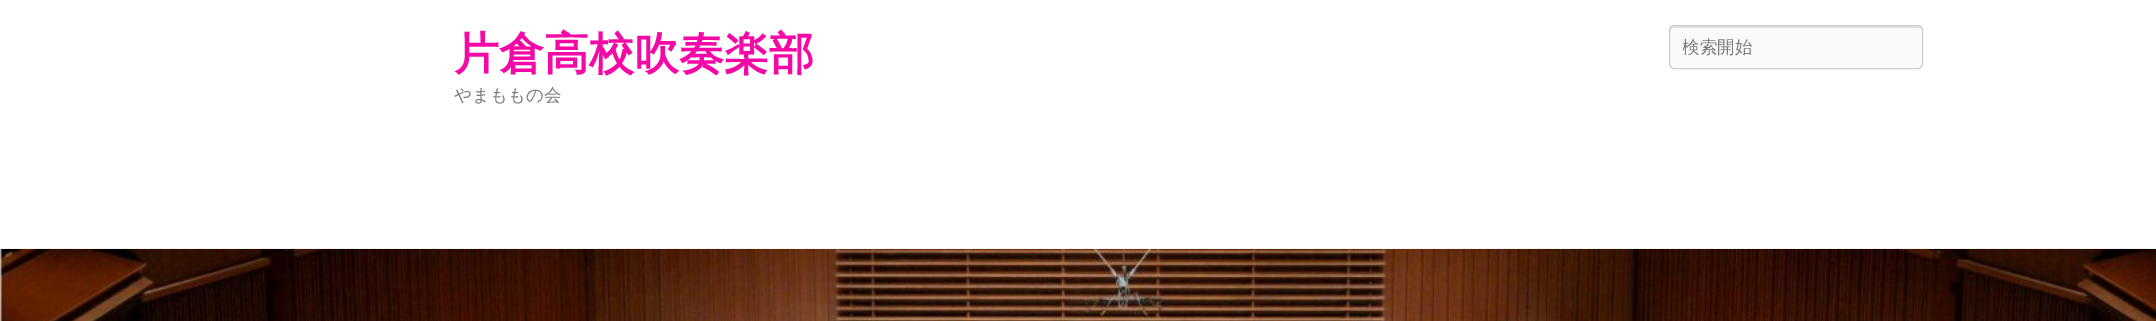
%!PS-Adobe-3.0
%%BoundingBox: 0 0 2156 321
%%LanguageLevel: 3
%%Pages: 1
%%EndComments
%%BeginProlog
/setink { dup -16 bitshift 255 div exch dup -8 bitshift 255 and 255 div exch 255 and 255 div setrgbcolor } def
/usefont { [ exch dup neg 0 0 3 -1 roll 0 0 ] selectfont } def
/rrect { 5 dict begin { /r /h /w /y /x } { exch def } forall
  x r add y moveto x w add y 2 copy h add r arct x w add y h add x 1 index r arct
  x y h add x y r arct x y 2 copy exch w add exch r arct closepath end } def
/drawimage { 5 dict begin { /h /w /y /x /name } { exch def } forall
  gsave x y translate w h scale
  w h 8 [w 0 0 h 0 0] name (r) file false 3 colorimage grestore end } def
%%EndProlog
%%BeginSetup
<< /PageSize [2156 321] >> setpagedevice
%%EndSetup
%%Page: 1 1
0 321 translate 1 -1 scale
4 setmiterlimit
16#FFFFFF setink
0 0 2156 321 rectfill
/WenQuanYiZenHei-Bold 45 usefont
16#F409A6 setink
454 69 moveto (片倉高校吹奏楽部) show
/WenQuanYiZenHei-Medium 17.5 usefont
16#7A7A7A setink
454 101 moveto (やまももの会) show
16#FAFAFA setink
1669 25 254 44 5 rrect fill
16#E1E1E1 setink
1674 28 moveto 1919 28 lineto 1921 29 lineto 1921 31 lineto 1921 30 lineto 1921 28 1919 26 1917 26 curveto 1674 26 lineto 1672 26 1670 28 1670 30 curveto 1670 31 lineto 1670 29 1672 28 1674 28 curveto closepath fill
16#CCCCCC setink
1669.5 25.5 253 43 4.5 rrect stroke
gsave
1683 36 226 23 rectclip
16#7A7A7A setink
1682 53 moveto (検索開始) show
grestore
(img1.raw) 0 248 2156 73 drawimage
showpage
%%EOF
